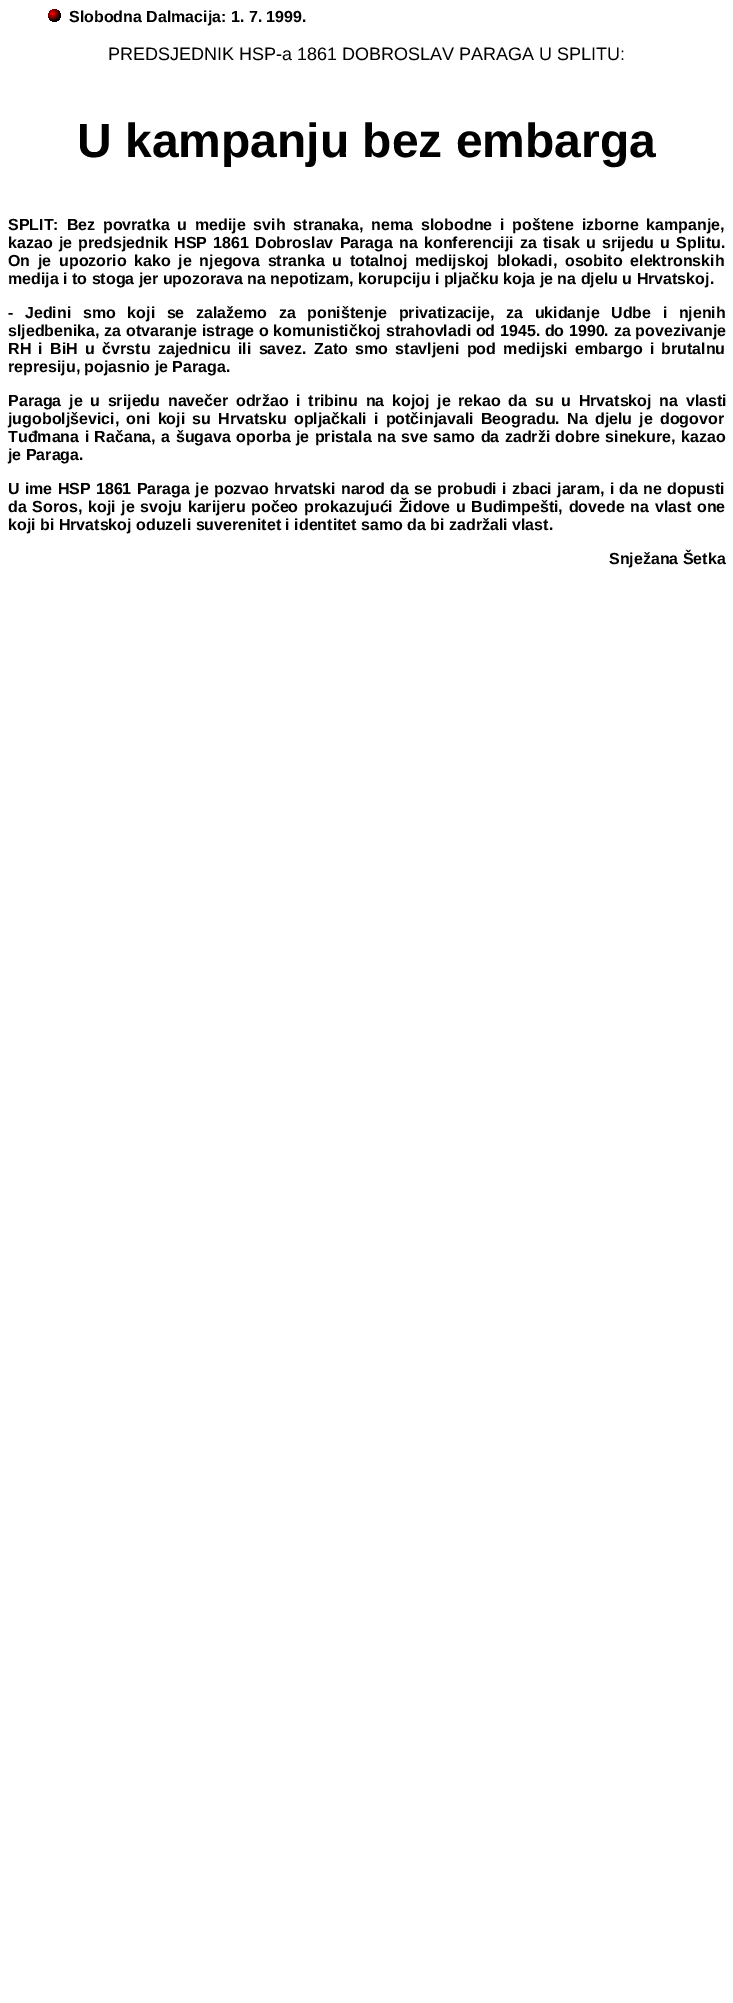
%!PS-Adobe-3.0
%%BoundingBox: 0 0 733 2003
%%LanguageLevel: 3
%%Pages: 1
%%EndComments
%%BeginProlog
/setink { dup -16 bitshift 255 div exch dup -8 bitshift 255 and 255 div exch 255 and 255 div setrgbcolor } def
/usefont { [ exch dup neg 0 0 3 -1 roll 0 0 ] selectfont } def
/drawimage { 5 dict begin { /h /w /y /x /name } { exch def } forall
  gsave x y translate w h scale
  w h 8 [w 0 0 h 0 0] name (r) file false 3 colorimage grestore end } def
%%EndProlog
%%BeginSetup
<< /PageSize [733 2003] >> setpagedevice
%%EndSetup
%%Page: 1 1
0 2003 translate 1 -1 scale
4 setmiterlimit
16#FFFFFF setink
0 0 733 2003 rectfill
(img1.raw) 48 9 13 13 drawimage
/LiberationSans-Bold 16 usefont
16#000000 setink
69 22 moveto (Slobodna Dalmacija: 1. 7. 1999.) show
/LiberationSans-Regular 18 usefont
108 60 moveto (PREDSJEDNIK HSP-a 1861 DOBROSLAV PARAGA U SPLITU:) show
/LiberationSans-Bold 48 usefont
77 157 moveto (U kampanju bez embarga) show
/LiberationSans-Bold 16 usefont
8 230 moveto 3.4 0 32 (SPLIT: Bez povratka u medije svih stranaka, nema slobodne i poštene izborne kampanje,) widthshow
8 248 moveto 1.75 0 32 (kazao je predsjednik HSP 1861 Dobroslav Paraga na konferenciji za tisak u srijedu u Splitu.) widthshow
8 266 moveto 3.25 0 32 (On je upozorio kako je njegova stranka u totalnoj medijskoj blokadi, osobito elektronskih) widthshow
8 284 moveto (medija i to stoga jer upozorava na nepotizam, korupciju i pljačku koja je na djelu u Hrvatskoj.) show
8 318 moveto 7.1 0 32 (- Jedini) widthshow
83 318 moveto 7.1 0 32 (smo koji se zalažemo za poništenje privatizacije, za ukidanje Udbe i njenih) widthshow
8 336 moveto 0.25 0 32 (sljedbenika, za otvaranje istrage o komunističkoj strahovladi od 1945. do 1990. za povezivanje) widthshow
8 354 moveto 2.9 0 32 (RH i BiH u čvrstu zajednicu ili savez. Zato smo stavljeni pod medijski embargo i bru) widthshow
687 354 moveto (talnu) show
8 372 moveto (represiju, pojasnio je Paraga.) show
8 406 moveto 3.25 0 32 (Paraga je u srijedu navečer održao i tribinu na kojoj je rekao da su u Hrvatskoj na vlasti) widthshow
8 424 moveto 2.75 0 32 (jugoboljševici, oni koji su Hrvatsku opljačkali i potčinjavali Beogradu. Na djelu je dogovor) widthshow
8 442 moveto 1 0 32 (Tuđmana i Račana, a šugava oporba je pristala na sve samo da zadrži dobre sinekure, kazao) widthshow
8 460 moveto (je Paraga.) show
8 494 moveto 0.8 0 32 (U ime HSP 1861 Paraga je pozvao hrvatski narod da se probudi i zbaci jaram, i da ne dopusti) widthshow
8 512 moveto 1.25 0 32 (da Soros, koji je svoju karijeru počeo prokazujući Židove u Budimpešti, dovede na vlast one) widthshow
8 530 moveto (koji bi Hrvatskoj oduzeli suverenitet i identitet samo da bi zadržali vlast.) show
609 564 moveto (Snježana Šetka) show
showpage
%%EOF
